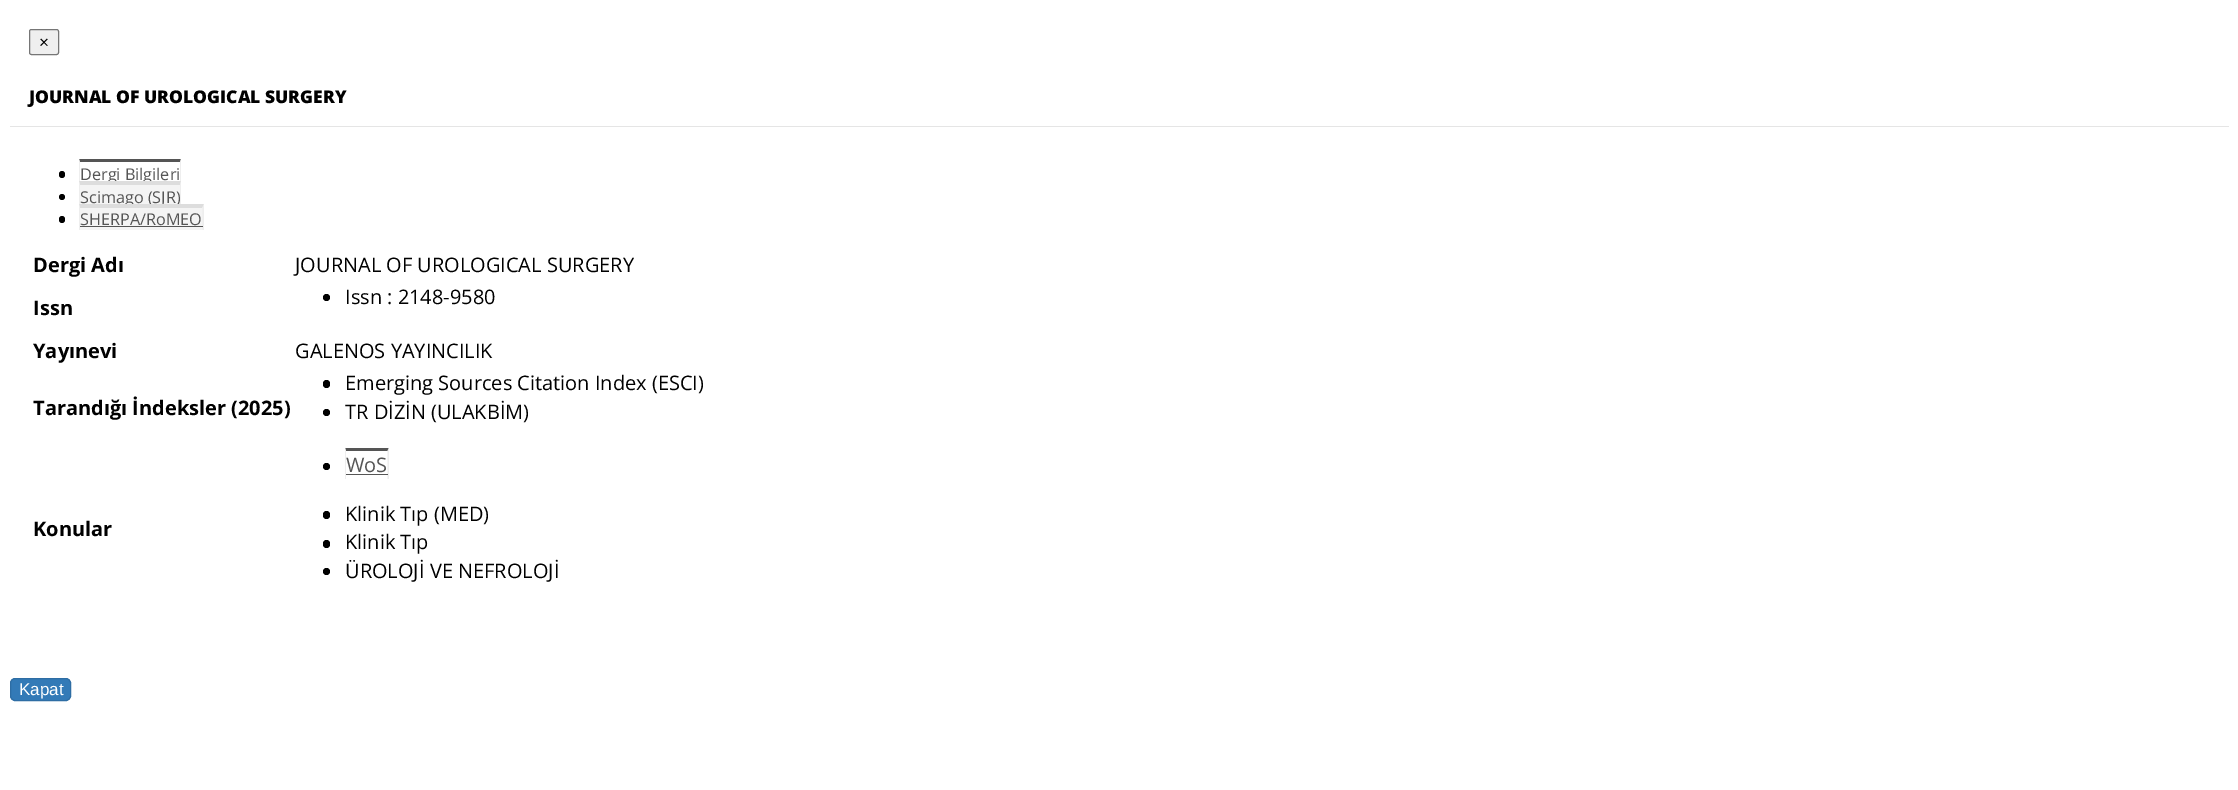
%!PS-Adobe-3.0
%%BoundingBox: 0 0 2238 790
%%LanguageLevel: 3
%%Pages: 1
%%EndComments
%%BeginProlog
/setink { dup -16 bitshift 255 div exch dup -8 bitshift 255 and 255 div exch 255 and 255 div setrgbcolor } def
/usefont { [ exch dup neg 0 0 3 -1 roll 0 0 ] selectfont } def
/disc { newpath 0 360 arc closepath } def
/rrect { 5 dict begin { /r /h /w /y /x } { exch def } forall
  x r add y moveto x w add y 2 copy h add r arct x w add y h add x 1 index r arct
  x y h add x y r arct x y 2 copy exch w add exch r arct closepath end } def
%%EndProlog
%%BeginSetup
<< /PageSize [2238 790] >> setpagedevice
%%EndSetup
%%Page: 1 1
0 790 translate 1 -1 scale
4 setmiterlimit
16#FFFFFF setink
0 0 2238 790 rectfill
16#E5E5E5 setink
10 126 2219 1 rectfill
16#EFEFEF setink
29.5 29.5 29 25 2 rrect gsave fill grestore
16#767676 setink
stroke
/LiberationSans-Regular 17 usefont
16#000000 setink
39 48 moveto (×) show
/OpenSans-ExtraBold 17.5 usefont
29 103 moveto (JOURNAL OF UROLOGICAL SURGERY) show
59 171 6 7 3 rrect fill
/OpenSans-Regular 16.25 usefont
16#555555 setink
80 180 moveto (Dergi Bilgileri) show
79 159 moveto 181 159 lineto 180 162 lineto 80 162 lineto closepath fill
16#EEEEEE setink
181 159 moveto 181 185 lineto 180 185 lineto 180 162.5 lineto closepath fill
79 185 moveto 79 159 lineto 80 162.5 lineto 80 185 lineto closepath fill
16#000000 setink
62 197 3 disc fill
16#F4F4F4 setink
79 181 102 23 rectfill
16#555555 setink
80 203 moveto (Scimago \(SJR\)) show
16#DDDDDD setink
79 181 moveto 181 181 lineto 180 185 lineto 80 185 lineto closepath fill
16#EEEEEE setink
181 181 moveto 181 207.5 lineto 180 207.5 lineto 180 185 lineto closepath fill
79 207.5 moveto 79 181 lineto 80 185 lineto 80 207.5 lineto closepath fill
16#000000 setink
59 216 6 7 3 rrect fill
16#F4F4F4 setink
79 204 125 26 rectfill
16#555555 setink
80 225 moveto (SHERPA/RoMEO) show
16#DDDDDD setink
79 204 moveto 204 204 lineto 202 208 lineto 80 208 lineto closepath fill
16#EEEEEE setink
204 204 moveto 204 230 lineto 202.5 230 lineto 202.5 207.5 lineto closepath fill
79 230 moveto 79 204 lineto 80 207.5 lineto 80 230 lineto closepath fill
16#555555 setink
80 226 123 1 rectfill
/OpenSans-Bold 20 usefont
16#000000 setink
33 272 moveto (Dergi Adı) show
/OpenSans-Regular 20 usefont
295 272 moveto (JOURNAL OF UROLOGICAL SURGERY) show
326.5 297.5 3.5 disc fill
345 304 moveto (Issn : 2148-9580) show
/OpenSans-Bold 20 usefont
33 315 moveto (Issn) show
33 358 moveto (Yayınevi) show
/OpenSans-Regular 20 usefont
295 358 moveto (GALENOS YAYINCILIK) show
/OpenSans-Bold 20 usefont
33 415 moveto (Tarandığı İndeksler \(2025\)) show
323 380 7 8 3.5 rrect fill
/OpenSans-Regular 20 usefont
345 390 moveto (Emerging Sources Citation Index \(ESCI\)) show
326.5 412.5 3.5 disc fill
345 419 moveto (TR DİZİN \(ULAKBİM\)) show
/OpenSans-Bold 20 usefont
33 536 moveto (Konular) show
326.5 466.5 3.5 disc fill
16#555555 setink
345 448 moveto 389 448 lineto 388 451 lineto 346 451 lineto closepath fill
16#EEEEEE setink
389 447.5 moveto 389 479 lineto 387.5 479 lineto 387.5 451 lineto closepath 345 479 moveto 345 447.5 lineto 346 451 lineto 346 479 lineto closepath fill
/OpenSans-Regular 20 usefont
16#555555 setink
346 472 moveto (WoS) show
346 474 42 1 rectfill
16#000000 setink
323 511 7 8 3.5 rrect fill
345 521 moveto (Klinik Tıp \(MED\)) show
323 540 7 8 3.5 rrect fill
345 549 moveto (Klinik Tıp) show
326.5 571.5 3.5 disc fill
345 578 moveto (ÜROLOJİ VE NEFROLOJİ) show
16#337AB7 setink
10.5 678.5 60 22 4.5 rrect gsave fill grestore
16#2E6DA4 setink
stroke
/LiberationSans-Regular 17 usefont
16#FFFFFF setink
19 695 moveto (Kapat) show
showpage
%%EOF
